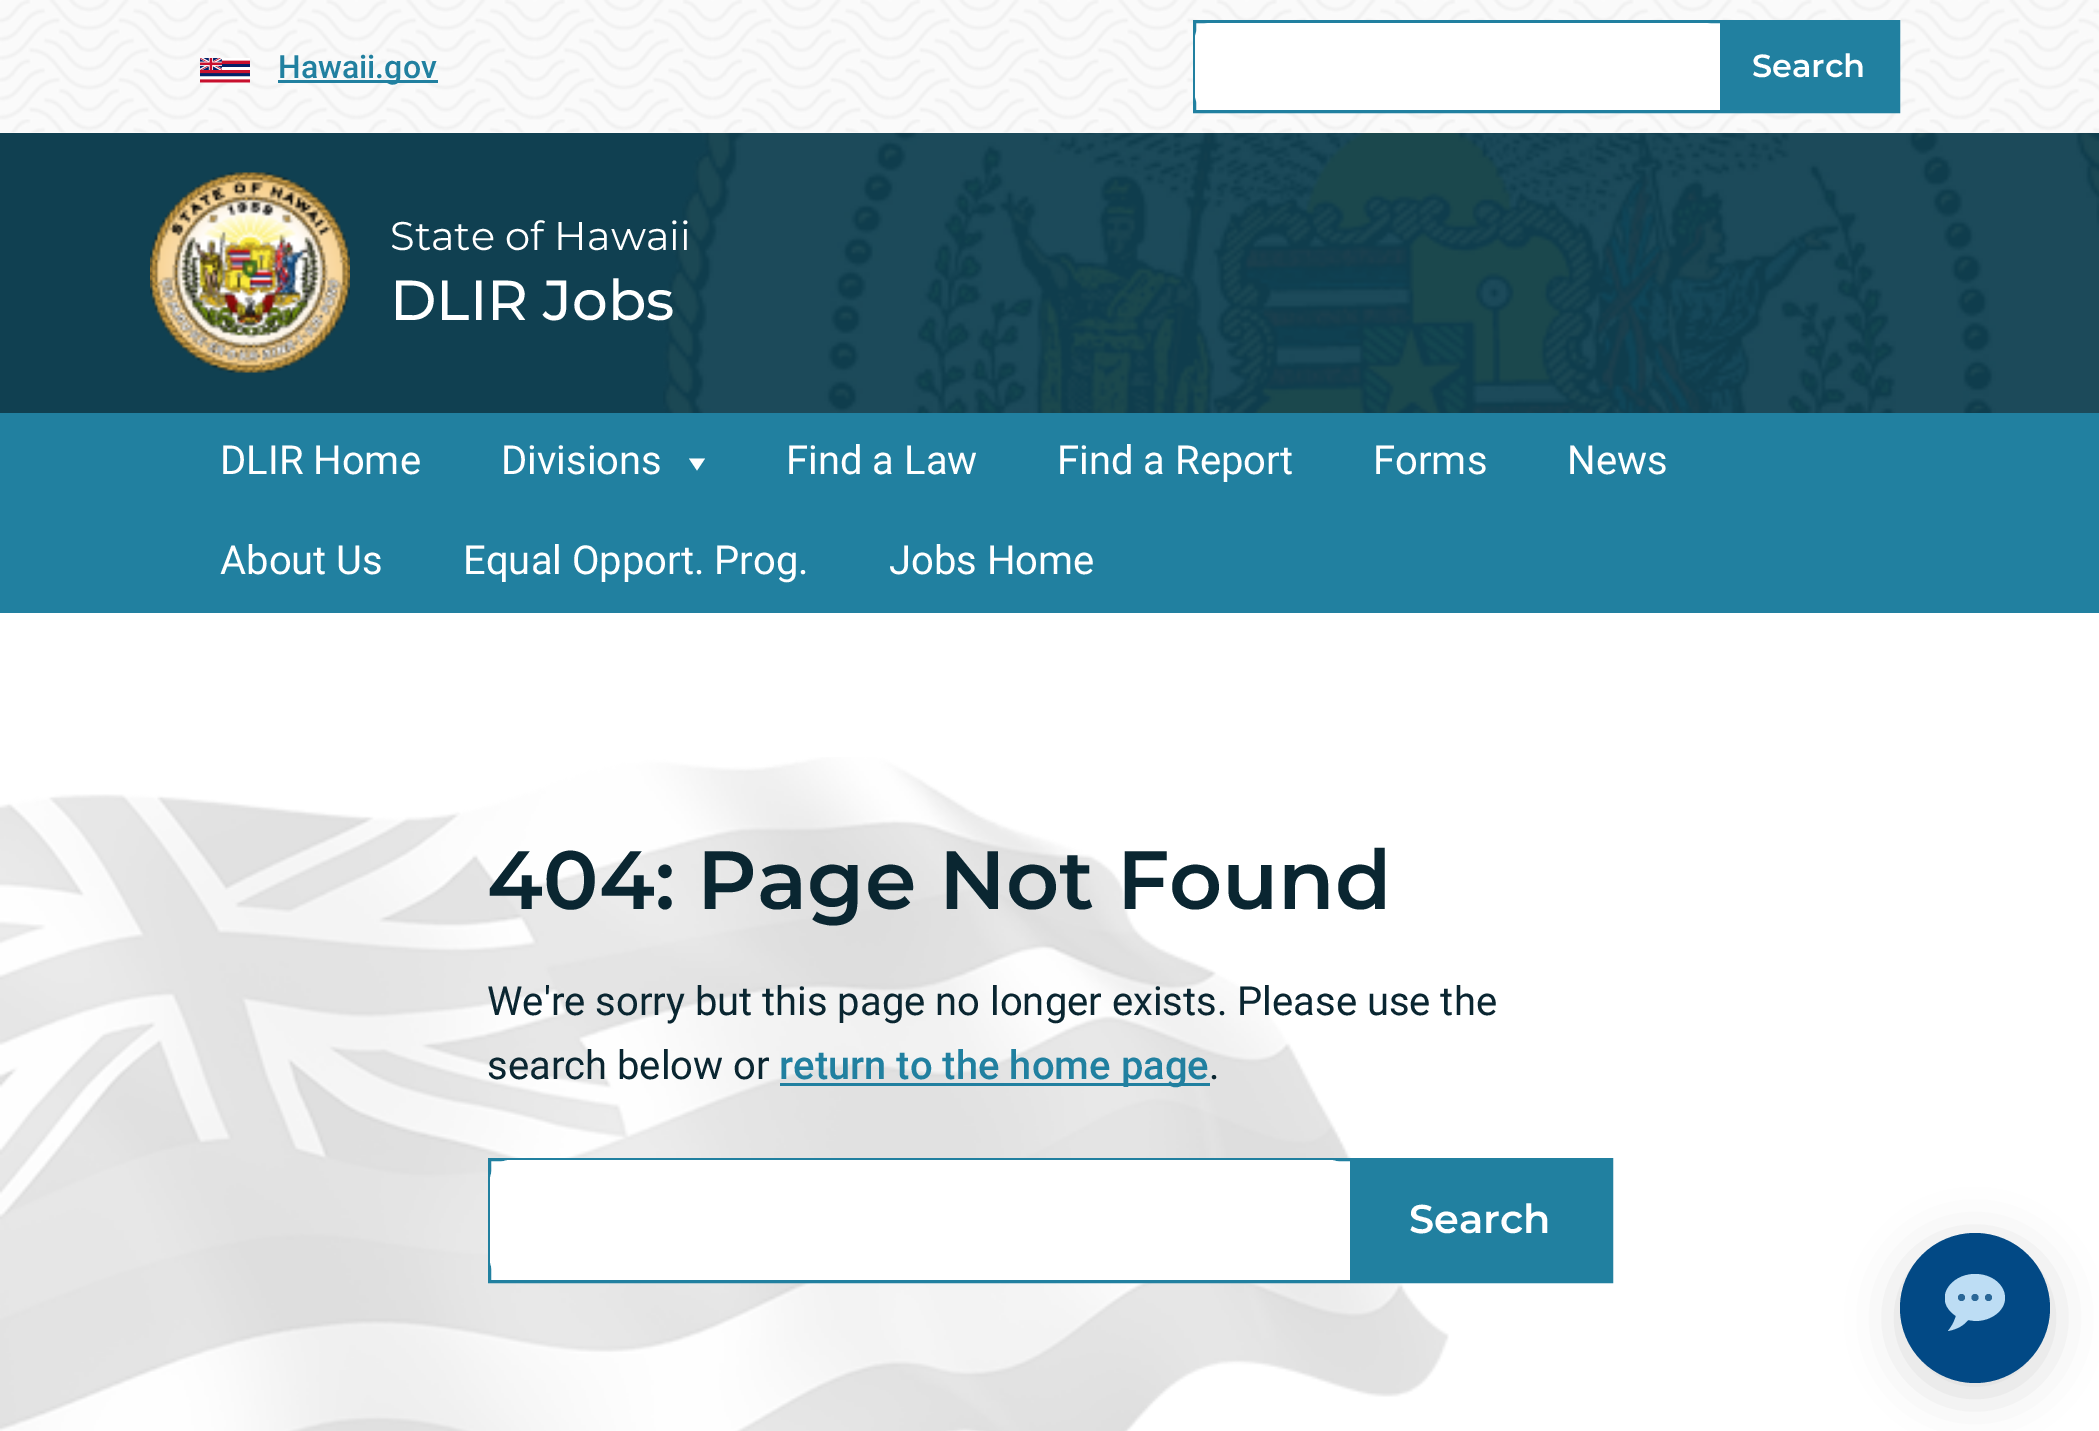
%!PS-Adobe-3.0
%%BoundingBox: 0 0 2099 1431
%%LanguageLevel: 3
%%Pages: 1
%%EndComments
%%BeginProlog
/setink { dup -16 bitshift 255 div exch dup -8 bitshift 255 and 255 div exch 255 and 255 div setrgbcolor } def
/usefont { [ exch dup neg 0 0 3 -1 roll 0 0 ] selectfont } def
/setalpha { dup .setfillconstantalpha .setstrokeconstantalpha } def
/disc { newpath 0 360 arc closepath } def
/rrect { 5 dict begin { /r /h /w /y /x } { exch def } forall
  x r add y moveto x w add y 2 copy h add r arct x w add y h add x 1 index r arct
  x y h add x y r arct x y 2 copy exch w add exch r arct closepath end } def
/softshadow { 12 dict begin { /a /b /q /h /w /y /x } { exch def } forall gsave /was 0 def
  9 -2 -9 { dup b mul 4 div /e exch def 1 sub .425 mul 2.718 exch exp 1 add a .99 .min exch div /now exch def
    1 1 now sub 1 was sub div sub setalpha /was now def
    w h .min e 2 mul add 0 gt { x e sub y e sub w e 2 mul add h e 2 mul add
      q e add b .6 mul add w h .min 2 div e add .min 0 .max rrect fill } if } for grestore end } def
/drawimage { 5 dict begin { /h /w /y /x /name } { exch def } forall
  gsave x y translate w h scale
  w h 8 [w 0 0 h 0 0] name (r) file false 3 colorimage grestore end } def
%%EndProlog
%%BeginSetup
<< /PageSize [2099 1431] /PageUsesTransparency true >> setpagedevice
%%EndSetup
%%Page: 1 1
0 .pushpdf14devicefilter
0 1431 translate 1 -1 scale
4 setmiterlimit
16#FFFFFF setink
0 0 2099 1431 rectfill
(img1.raw) 0 0 2099 133 drawimage
(img2.raw) 200 58 50 25 drawimage
16#2180A0 setink
278 80 160 3 rectfill
/Roboto-Medium 32 usefont
278 78 moveto (Hawaii.gov) show
16#FFFFFF setink
1196 23 524 87 rectfill
16#2180A0 setink
3 setlinewidth
1194.5 21.5 704 90 rectstroke
16#FFFFFF setink
1195 23 525 87 15 rrect fill
16#2180A0 setink
1720 23 177 87 rectfill
/Montserrat-SemiBold 32 usefont
16#FFFFFF setink
1752 77 moveto (Search) show
16#104051 setink
0 133 2099 280 rectfill
(img3.raw) 663 132 1436 281 drawimage
(img4.raw) 150 172 200 201 drawimage
/Montserrat-Regular 40 usefont
16#FFFFFF setink
390 250 moveto (State of Hawaii) show
/Montserrat-Medium 56.25 usefont
390 320 moveto (DLIR Jobs) show
16#2180A0 setink
0 413 2099 200 rectfill
/Roboto-Regular 40 usefont
16#FFFFFF setink
220 474 moveto (DLIR Home) show
501 474 moveto (Divisions) show
705 458.5 moveto 697 470.5 lineto 689 458.5 lineto closepath fill
[
    [(Find a Law) 786 474]
    [(Find a Report) 1057 474]
    [(Forms) 1373 474]
    [(News) 1567 474]
    [(About Us) 220 574]
    [(Equal Opport. Prog.) 463 574]
    [(Jobs Home) 889 574]
] { aload pop moveto show } forall
(img5.raw) 0 757 1449 674 drawimage
/Montserrat-SemiBold 82.5 usefont
16#0A2631 setink
487 909 moveto (404: Page Not Found) show
/Roboto-Regular 40 usefont
487 1015 moveto (We're sorry but this page no longer exists. Please use the) show
487 1079 moveto (search below or) show
16#2180A0 setink
780 1083 430 3 rectfill
/Roboto-Medium 40 usefont
779 1079 moveto (return to the home page) show
/Roboto-Regular 40 usefont
16#0A2631 setink
1209 1079 moveto (.) show
16#FFFFFF setink
491 1161 859 119 rectfill
16#2180A0 setink
489.5 1159.5 1122 122 rectstroke
16#FFFFFF setink
490 1160 860 120 20 rrect fill
16#2180A0 setink
1350 1161 260 119 rectfill
/Montserrat-SemiBold 40 usefont
16#FFFFFF setink
1409 1233 moveto (Search) show
16#000000 setink
1900 1243 150 150 75 25 0.15 softshadow
16#024985 setink
1975 1308 75 disc fill
gsave
1945 1273 60 60 rectclip
16#BDDDF4 setink
1975 1274 moveto 1950 1274 1932 1300 1956 1316 curveto 1955 1319 1953 1325 1948 1331 curveto 1958 1329 1964 1325 1968 1320 curveto 1975 1321 lineto 1992 1321 2005 1310 2005 1298 curveto 2005 1285 1992 1274 1975 1274 curveto closepath fill
grestore
16#2A6797 setink
1961.5 1297.5 3.5 disc fill
1975 1297.5 3.5 disc fill
1988.5 1297.5 3.5 disc fill
.poppdf14devicefilter showpage
%%EOF
